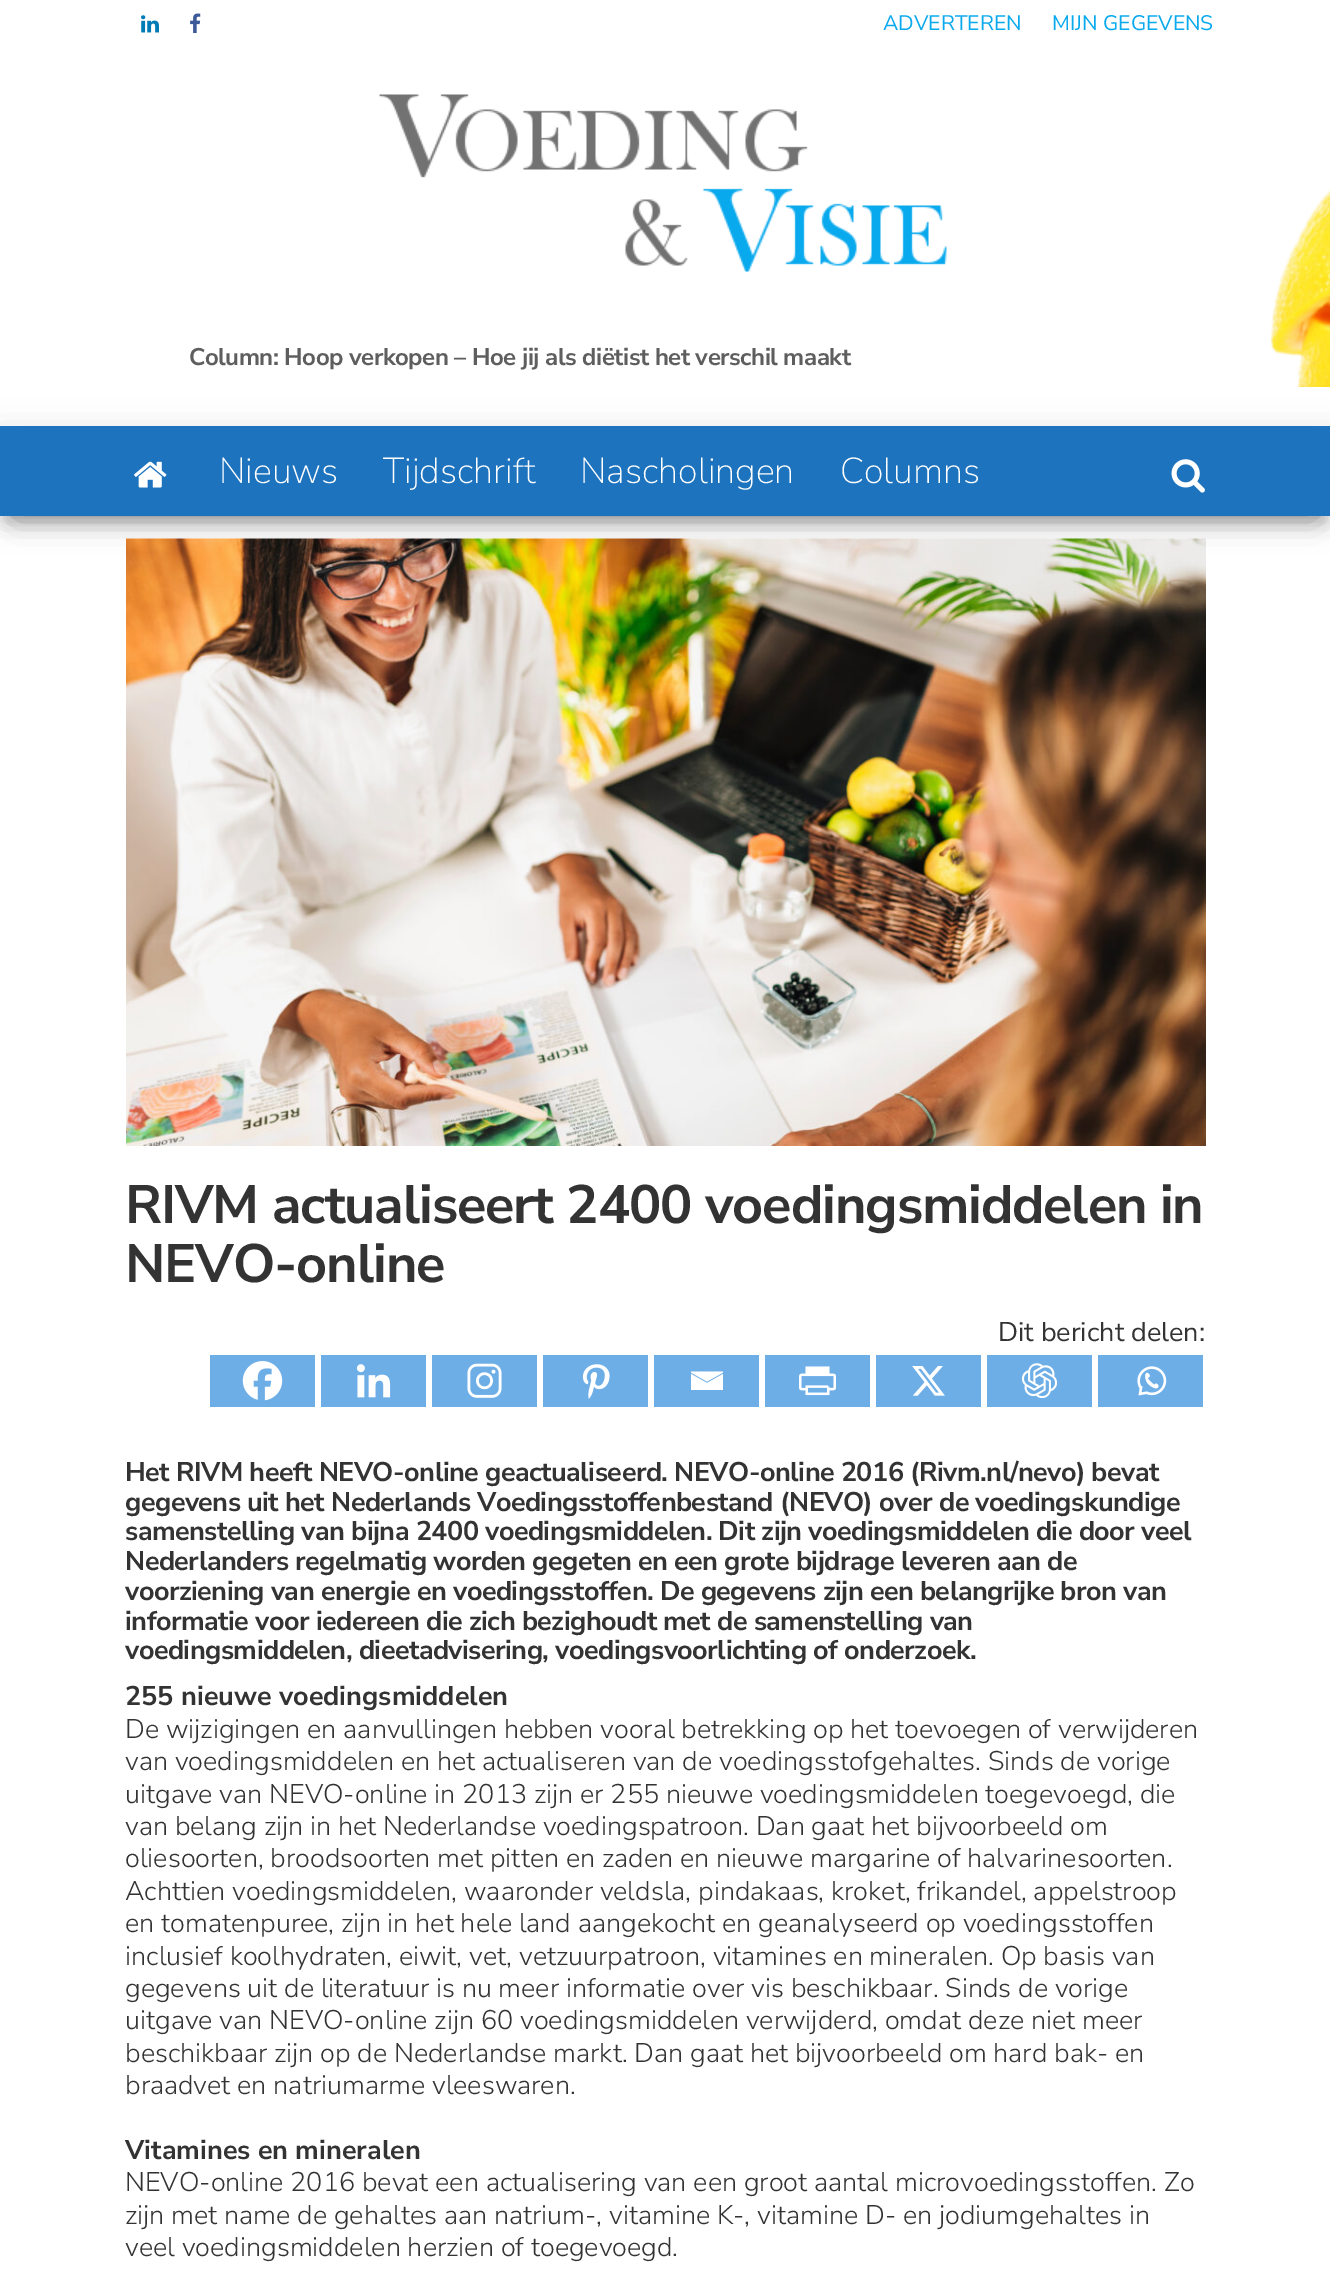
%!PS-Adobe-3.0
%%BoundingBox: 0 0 1330 2286
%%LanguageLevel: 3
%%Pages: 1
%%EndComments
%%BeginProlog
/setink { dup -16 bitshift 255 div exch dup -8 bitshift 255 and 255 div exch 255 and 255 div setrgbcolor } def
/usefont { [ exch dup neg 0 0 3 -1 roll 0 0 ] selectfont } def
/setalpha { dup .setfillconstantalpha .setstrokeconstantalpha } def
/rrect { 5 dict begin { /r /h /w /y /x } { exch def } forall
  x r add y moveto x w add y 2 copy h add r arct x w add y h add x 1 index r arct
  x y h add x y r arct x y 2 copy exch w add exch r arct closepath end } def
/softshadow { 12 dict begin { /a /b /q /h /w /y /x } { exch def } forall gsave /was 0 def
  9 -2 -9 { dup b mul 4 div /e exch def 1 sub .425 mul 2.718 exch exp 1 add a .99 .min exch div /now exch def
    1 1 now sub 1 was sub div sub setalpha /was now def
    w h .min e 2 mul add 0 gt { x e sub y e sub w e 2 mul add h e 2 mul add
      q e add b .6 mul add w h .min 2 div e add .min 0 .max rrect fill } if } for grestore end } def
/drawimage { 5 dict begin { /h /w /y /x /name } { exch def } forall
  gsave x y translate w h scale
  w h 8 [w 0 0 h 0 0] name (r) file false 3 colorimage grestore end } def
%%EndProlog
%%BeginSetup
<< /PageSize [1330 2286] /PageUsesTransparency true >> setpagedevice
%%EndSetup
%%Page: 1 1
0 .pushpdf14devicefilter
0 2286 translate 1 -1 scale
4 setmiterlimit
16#FFFFFF setink
0 0 1330 2286 rectfill
(img1.raw) 141 15 18 18 drawimage
(img2.raw) 190 13 11 20 drawimage
/NunitoSans-Regular 21 usefont
16#08A9ED setink
883 30 moveto (ADVERTEREN) show
1052 30 moveto (MIJN GEGEVENS) show
(img3.raw) 1270 189 60 198 drawimage
(img4.raw) 379 94 568 178 drawimage
/NunitoSans-Bold 24 usefont
16#5E5E5E setink
189 365 moveto -0.48 0 (Column: Hoop verkopen – Hoe jij als diëtist het verschil maakt) ashow
16#000000 setink
8 446 1315 75 0 7.5 0.2 softshadow
0 431 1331 90 0 15 0.12 softshadow
18 459 1295 54 0 15 0.42 softshadow
16#1E73BE setink
0 426 1330 90 rectfill
(img5.raw) 134 461 33 27 drawimage
/NunitoSans-ExtraLight 36 usefont
16#FFFFFF setink
[
    [(Nieuws) 219 483]
    [(Tijdschrift) 383 483]
    [(Nascholingen) 580 483]
    [(Columns) 840 483]
] { aload pop moveto show } forall
(img6.raw) 1171 459 34 34 drawimage
(img7.raw) 126 538 1080 608 drawimage
/NunitoSans-Bold 54 usefont
16#333333 setink
125 1223 moveto -1.1 0 (RIVM actualiseert 2400 voedingsmiddelen in) ashow
125 1282 moveto -1.1 0 (NEVO-online) ashow
/NunitoSans-Regular 27 usefont
998 1341 moveto (Dit bericht delen:) show
16#6EAEE7 setink
210 1355 105 52 rectfill
(img8.raw) 242 1361 41 40 drawimage
321 1355 105 52 rectfill
(img9.raw) 356 1364 35 34 drawimage
432 1355 105 52 rectfill
(img10.raw) 467 1363 35 35 drawimage
543 1355 105 52 rectfill
(img11.raw) 582 1364 28 35 drawimage
654 1355 105 52 rectfill
16#FFFFFF setink
689.5 1371.5 moveto 723 1371.5 lineto 723 1372.5 lineto 707 1381.5 lineto 691 1372.5 lineto 691 1371.5 lineto 691 1374 moveto 707 1383 lineto 723 1374 lineto 723 1390 lineto 691 1390 lineto 691 1374 lineto fill
16#6EAEE7 setink
765 1355 105 52 rectfill
(img12.raw) 799 1366 37 30 drawimage
876 1355 105 52 rectfill
(img13.raw) 912 1366 33 30 drawimage
987 1355 105 52 rectfill
(img14.raw) 1022 1363 35 35 drawimage
1098 1355 105 52 rectfill
(img15.raw) 1137 1366 30 30 drawimage
/NunitoSans-Bold 27 usefont
16#333333 setink
125 1481 moveto -0.55 0 (Het RIVM heeft NEVO-online geactualiseerd. NEVO-online 2016 \(Rivm.nl/nevo\) bevat) ashow
125 1511 moveto -0.55 0 (gegevens uit het Nederlands Voedingsstoffenbestand \(NEVO\) over de voedingskundige) ashow
125 1540 moveto -0.55 0 (samenstelling van bijna 2400 voedingsmiddelen. Dit zijn voedingsmiddelen die door veel) ashow
125 1570 moveto -0.55 0 (Nederlanders regelmatig worden gegeten en een grote bijdrage leveren aan de) ashow
125 1600 moveto -0.55 0 (voorziening van energie en voedingsstoffen. De gegevens zijn een belangrijke bron van) ashow
125 1630 moveto -0.55 0 (informatie voor iedereen die zich bezighoudt met de samenstelling van) ashow
125 1659 moveto -0.55 0 (voedingsmiddelen, dieetadvisering, voedingsvoorlichting of onderzoek.) ashow
125 1705 moveto (255 nieuwe voedingsmiddelen) show
/NunitoSans-Light 27 usefont
[
    [(De wijzigingen en aanvullingen hebben vooral betrekking op het toevoegen of verwijderen) 125 1738]
    [(van voedingsmiddelen en het actualiseren van de voedingsstofgehaltes. Sinds de vorige) 125 1770]
    [(uitgave van NEVO-online in 2013 zijn er 255 nieuwe voedingsmiddelen toegevoegd, die) 125 1803]
    [(van belang zijn in het Nederlandse voedingspatroon. Dan gaat het bijvoorbeeld om) 125 1835]
    [(oliesoorten, broodsoorten met pitten en zaden en nieuwe margarine of halvarinesoorten.) 125 1867]
    [(Achttien voedingsmiddelen, waaronder veldsla, pindakaas, kroket, frikandel, appelstroop) 125 1900]
    [(en tomatenpuree, zijn in het hele land aangekocht en geanalyseerd op voedingsstoffen) 125 1932]
    [(inclusief koolhydraten, eiwit, vet, vetzuurpatroon, vitamines en mineralen. Op basis van) 125 1965]
    [(gegevens uit de literatuur is nu meer informatie over vis beschikbaar. Sinds de vorige) 125 1997]
    [(uitgave van NEVO-online zijn 60 voedingsmiddelen verwijderd, omdat deze niet meer) 125 2029]
    [(beschikbaar zijn op de Nederlandse markt. Dan gaat het bijvoorbeeld om hard bak- en) 125 2062]
    [(braadvet en natriumarme vleeswaren.) 125 2094]
] { aload pop moveto show } forall
/NunitoSans-Bold 27 usefont
125 2159 moveto (Vitamines en mineralen) show
/NunitoSans-Light 27 usefont
[
    [(NEVO-online 2016 bevat een actualisering van een groot aantal microvoedingsstoffen. Zo) 125 2191]
    [(zijn met name de gehaltes aan natrium-, vitamine K-, vitamine D- en jodiumgehaltes in) 125 2224]
    [(veel voedingsmiddelen herzien of toegevoegd.) 125 2256]
] { aload pop moveto show } forall
.poppdf14devicefilter showpage
%%EOF
